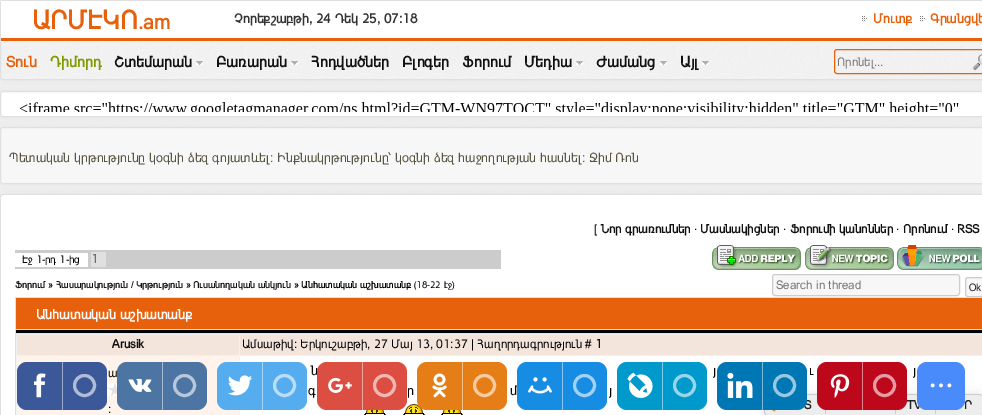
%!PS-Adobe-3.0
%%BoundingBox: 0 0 982 415
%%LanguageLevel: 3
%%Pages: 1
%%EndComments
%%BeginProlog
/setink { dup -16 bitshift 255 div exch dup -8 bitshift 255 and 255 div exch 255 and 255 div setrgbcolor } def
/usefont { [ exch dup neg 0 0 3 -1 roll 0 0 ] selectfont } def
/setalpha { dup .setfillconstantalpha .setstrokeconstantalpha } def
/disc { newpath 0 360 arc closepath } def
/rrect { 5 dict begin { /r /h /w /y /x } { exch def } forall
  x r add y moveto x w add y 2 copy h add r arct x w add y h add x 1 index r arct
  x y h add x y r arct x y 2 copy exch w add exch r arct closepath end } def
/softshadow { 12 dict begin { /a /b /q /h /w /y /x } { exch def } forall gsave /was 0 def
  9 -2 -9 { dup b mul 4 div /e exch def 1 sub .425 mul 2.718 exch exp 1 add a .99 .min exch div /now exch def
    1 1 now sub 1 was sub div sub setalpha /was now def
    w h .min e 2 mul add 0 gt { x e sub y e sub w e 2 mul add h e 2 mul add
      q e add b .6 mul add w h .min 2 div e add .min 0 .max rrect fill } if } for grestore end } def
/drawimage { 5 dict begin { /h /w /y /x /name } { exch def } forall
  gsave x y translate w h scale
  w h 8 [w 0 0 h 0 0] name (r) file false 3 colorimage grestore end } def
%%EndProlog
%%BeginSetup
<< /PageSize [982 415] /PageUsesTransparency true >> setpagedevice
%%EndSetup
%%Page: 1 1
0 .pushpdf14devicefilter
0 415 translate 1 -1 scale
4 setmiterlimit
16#FFFFFF setink
0 0 982 415 rectfill
(img1.raw) 0 0 982 197 drawimage
16#E2E2E2 setink
0 0 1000 18 3 5 1 softshadow
16#E0E0E0 setink
0.5 0.5 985 17 2.5 rrect stroke
16#E2E2E2 setink
0 91 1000 26 3 5 1 softshadow
16#FFFFFF setink
0.5 91.5 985 25 2.5 rrect gsave fill grestore
16#E0E0E0 setink
stroke
16#E2E2E2 setink
0 0 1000 80 3 5 1 softshadow
(img2.raw) 0 0 982 80 drawimage
16#E0E0E0 setink
0.5 0.5 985 79 2.5 rrect stroke
16#FFFFFF setink
1 1 981 37 rectfill
16#E7610C setink
1 38 981 3 rectfill
/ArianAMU-Bold 26 usefont
32 29 moveto (ԱՐՄԷԿՈ) show
/ArianAMU-Bold 20 usefont
138 29 moveto (.am) show
/ArianAMU-Bold 13 usefont
16#333333 setink
234 23 moveto (Չորեքշաբթի, 24 Դեկ 25, 07:18) show
(img3.raw) 862 16 6 6 drawimage
16#E7610C setink
873 23 moveto (Մուտք) show
(img3.raw) 920 16 6 6 drawimage
930 23 moveto (Գրանցվե) show
/ArianAMU-Bold 15 usefont
6 67 moveto (Տուն) show
16#809900 setink
50 67 moveto (Դիմորդ) show
16#111111 setink
114 67 moveto (Շտեմարան) show
(img4.raw) 196 61 7 4 drawimage
216 67 moveto (Բառարան) show
(img4.raw) 291 61 7 4 drawimage
[
    [(Հոդվածներ) 311 67]
    [(Բլոգեր) 402 67]
    [(Ֆորում) 462 67]
    [(Մեդիա) 524 67]
] { aload pop moveto show } forall
(img4.raw) 576 61 7 4 drawimage
596 67 moveto (Ժամանց) show
(img4.raw) 660 61 7 4 drawimage
680 67 moveto (Այլ) show
(img4.raw) 702 61 7 4 drawimage
16#E7610C setink
834.5 49.5 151 24 2.5 rrect stroke
/ArianAMU-Regular 12 usefont
16#757575 setink
837 66 moveto (Որոնել...) show
(img5.raw) 972 54 10 17 drawimage
16#E2E2E2 setink
0 127 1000 57 3 5 1 softshadow
(img6.raw) 19 102 940 10 drawimage
16#F7F7F7 setink
0.5 127.5 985 56 2.5 rrect gsave fill grestore
16#E0E0E0 setink
stroke
/ArianAMU-Regular 13 usefont
16#595543 setink
9 162 moveto (Պետական կրթությունը կօգնի ձեզ գոյատևել: Ինքնակրթությունը՝ կօգնի ձեզ հաջողության հասնել: Ջիմ Ռոն) show
16#E2E2E2 setink
0 194 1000 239 3 5 1 softshadow
16#FFFFFF setink
0 194 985 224 3 rrect fill
16#E0E0E0 setink
3 194 moveto 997 194 lineto 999 194 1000 195 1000 197 curveto 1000 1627 lineto 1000 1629 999 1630 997 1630 curveto 3 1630 lineto 1 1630 0 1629 0 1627 curveto 0 197 lineto 0 195 1 194 3 194 curveto closepath 3 195 moveto 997 195 lineto 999 195 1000 196 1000 197 curveto 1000 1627 lineto 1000 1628 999 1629 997 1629 curveto 3 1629 lineto 2 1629 1 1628 1 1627 curveto 1 197 lineto 1 196 2 195 3 195 curveto closepath eofill
/ArianAMU-Regular 12 usefont
16#000000 setink
594 233 moveto ([) show
/ArianAMU-Bold 12 usefont
16#111111 setink
601 233 moveto (Նոր գրառումներ) show
/ArianAMU-Regular 12 usefont
16#000000 setink
694 233 moveto (·) show
/ArianAMU-Bold 12 usefont
16#111111 setink
700 233 moveto (Մասնակիցներ) show
/ArianAMU-Regular 12 usefont
16#000000 setink
783 233 moveto (·) show
/ArianAMU-Bold 12 usefont
16#111111 setink
790 233 moveto (Ֆորումի կանոններ) show
/ArianAMU-Regular 12 usefont
16#000000 setink
896 233 moveto (·) show
/ArianAMU-Bold 12 usefont
16#111111 setink
903 233 moveto (Որոնում) show
/ArianAMU-Regular 12 usefont
16#000000 setink
951 233 moveto (·) show
/ArianAMU-Bold 12 usefont
16#111111 setink
957 233 moveto (RSS) show
16#CCCCCC setink
15 250 486 19 rectfill
16#FFFFFF setink
15 253 73 14 rectfill
/ArianAMU-Regular 10.5 usefont
16#000000 setink
22 263 moveto (Էջ 1-րդ 1-ից) show
16#E0E0E0 setink
91 252 15 15 rectfill
/ArianAMU-Bold 12 usefont
16#6E6E6E setink
91 263 moveto (1) show
(img7.raw) 712 245 89 25 drawimage
(img8.raw) 805 245 89 25 drawimage
(img9.raw) 897 245 85 25 drawimage
/ArianAMU-Bold 9.3 usefont
16#111111 setink
15 288 moveto (Ֆորում) show
16#000000 setink
48 288 moveto (») show
16#111111 setink
56 288 moveto (Հասարակություն / Կրթություն) show
16#000000 setink
186 288 moveto (») show
16#111111 setink
193 288 moveto (Ուսանողական անկյուն) show
16#000000 setink
294 288 moveto (» Անհատական աշխատանք) show
/ArianAMU-Regular 9.3 usefont
414 288 moveto (\(18-22 էջ\)) show
16#F7F7F7 setink
772.5 274.5 187 21 2.5 rrect gsave fill grestore
16#CCCCCC setink
stroke
/ArianAMU-Regular 12 usefont
16#757575 setink
776 289 moveto (Search in thread) show
16#F7F7F7 setink
965.5 277.5 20 19 2.5 rrect gsave fill grestore
16#CCCCCC setink
stroke
/ArianAMU-Regular 10.5 usefont
16#222222 setink
969 291 moveto (Ok) show
16#E0E0E0 setink
15 297 967 118 rectfill
16#E7610C setink
16 298 966 31 rectfill
/ArianAMU-Bold 13.25 usefont
16#FFFFFF setink
36 319 moveto (Անհատական աշխատանք) show
[
    [16 330 966 3 16#000000]
    [16 334 966 81 16#F1F2F3]
    [17 335 222 20 16#F4E5DC]
] { aload pop setink rectfill } forall
/ArianAMU-Bold 12 usefont
16#111111 setink
112 348 moveto (Arusik) show
16#F4E5DC setink
240 335 742 20 rectfill
/ArianAMU-Regular 12 usefont
16#000000 setink
242 348 moveto (Ամսաթիվ: Երկուշաբթի, 27 Մայ 13, 01:37 | Հաղորդագրություն #) show
/ArianAMU-Bold 12 usefont
16#111111 setink
595 348 moveto (1) show
16#FFF3EC setink
17 356 222 59 rectfill
/ArianAMU-Regular 12 usefont
16#000000 setink
108 377 moveto (ա) show
(img10.raw) 107 383 10 13 drawimage
108 413 moveto (:) show
16#FFFFFF setink
240 356 742 59 rectfill
/ArianAMU-Regular 13.25 usefont
16#000000 setink
[
    [(ն) 311 375]
    [(յ) 713 375]
    [(ւ) 809 375]
    [(յ) 913 375]
    [(գ) 308 395]
    [(ր) 407 395]
    [(մ) 510 395]
    [(յ) 609 395]
] { aload pop moveto show } forall
(img11.raw) 364 410 22 5 drawimage
(img12.raw) 403 404 22 11 drawimage
(img11.raw) 441 410 22 5 drawimage
16#3B5998 setink
17 362 90 48 10 rrect fill
(img13.raw) 34 373 12 25 drawimage
16#9DACCC setink
62 362 1 48 rectfill
16#B1BDD6 setink
3 setlinewidth
84.5 385.5 10 disc stroke
16#4D75A3 setink
117 362 90 48 10 rrect fill
(img14.raw) 128 378 24 14 drawimage
16#A6BAD1 setink
162 362 1 48 rectfill
16#B8C8DA setink
184.5 385.5 10 disc stroke
16#55ACEE setink
217 362 90 48 10 rrect fill
(img15.raw) 228 375 25 21 drawimage
16#AAD6F7 setink
262 362 1 48 rectfill
16#BBDEF8 setink
284.5 385.5 10 disc stroke
16#DC4E41 setink
317 362 90 48 10 rrect fill
(img16.raw) 328 377 24 16 drawimage
16#EEA7A0 setink
362 362 1 48 rectfill
16#F1B8B3 setink
384.5 385.5 10 disc stroke
16#E67E17 setink
417 362 90 48 10 rrect fill
(img17.raw) 432 373 15 25 drawimage
16#F3BF8B setink
462 362 1 48 rectfill
16#F5CBA2 setink
484.5 385.5 10 disc stroke
16#168DE2 setink
517 362 90 48 10 rrect fill
(img18.raw) 528 377 24 17 drawimage
16#8BC6F1 setink
562 362 1 48 rectfill
16#A2D1F3 setink
584.5 385.5 10 disc stroke
16#0099CC setink
617 362 90 48 10 rrect fill
(img19.raw) 627 372 26 26 drawimage
16#80CCE6 setink
662 362 1 48 rectfill
16#99D6EB setink
684.5 385.5 10 disc stroke
16#E2E2E2 setink
764 394 218 21 3 5 1 softshadow
16#EDEDED setink
764 394 218 21 3 rrect fill
16#CCCCCC setink
767 394 moveto 979 394 lineto 981 394 982 395 982 397 curveto 982 412 lineto 982 414 981 415 979 415 curveto 767 415 lineto 765 415 764 414 764 412 curveto 764 397 lineto 764 395 765 394 767 394 curveto closepath 767 395 moveto 979 395 lineto 980 395 981 396 981 397 curveto 981 412 lineto 981 414 980 415 979 415 curveto 767 415 lineto 766 415 765 414 765 412 curveto 765 397 lineto 765 396 766 395 767 395 curveto closepath eofill
/ArianAMU-Bold 12 usefont
16#222222 setink
804 409 moveto (Տ) show
16#0077B5 setink
717 362 90 48 10 rrect fill
(img20.raw) 727 372 26 26 drawimage
16#80BBDA setink
762 362 1 48 rectfill
16#99C9E1 setink
784.5 385.5 10 disc stroke
16#222222 setink
907 409 moveto (TV) show
16#CCCCCC setink
825 409 1 5 rectfill
16#BD081C setink
817 362 90 48 10 rrect fill
(img21.raw) 830 374 20 24 drawimage
16#DE848E setink
862 362 1 48 rectfill
16#E59CA4 setink
884.5 385.5 10 disc stroke
16#EDEDED setink
935 395 47 20 3 rrect fill
16#222222 setink
964 409 moveto (Ր) show
16#498BFA setink
917 362 48 48 10 rrect fill
(img22.raw) 930 383 22 5 drawimage
(img23.raw) 768 410 10 2 drawimage
16#CCCCCC setink
895 410 1 4 rectfill
935 410 1 4 rectfill
.poppdf14devicefilter showpage
%%EOF
